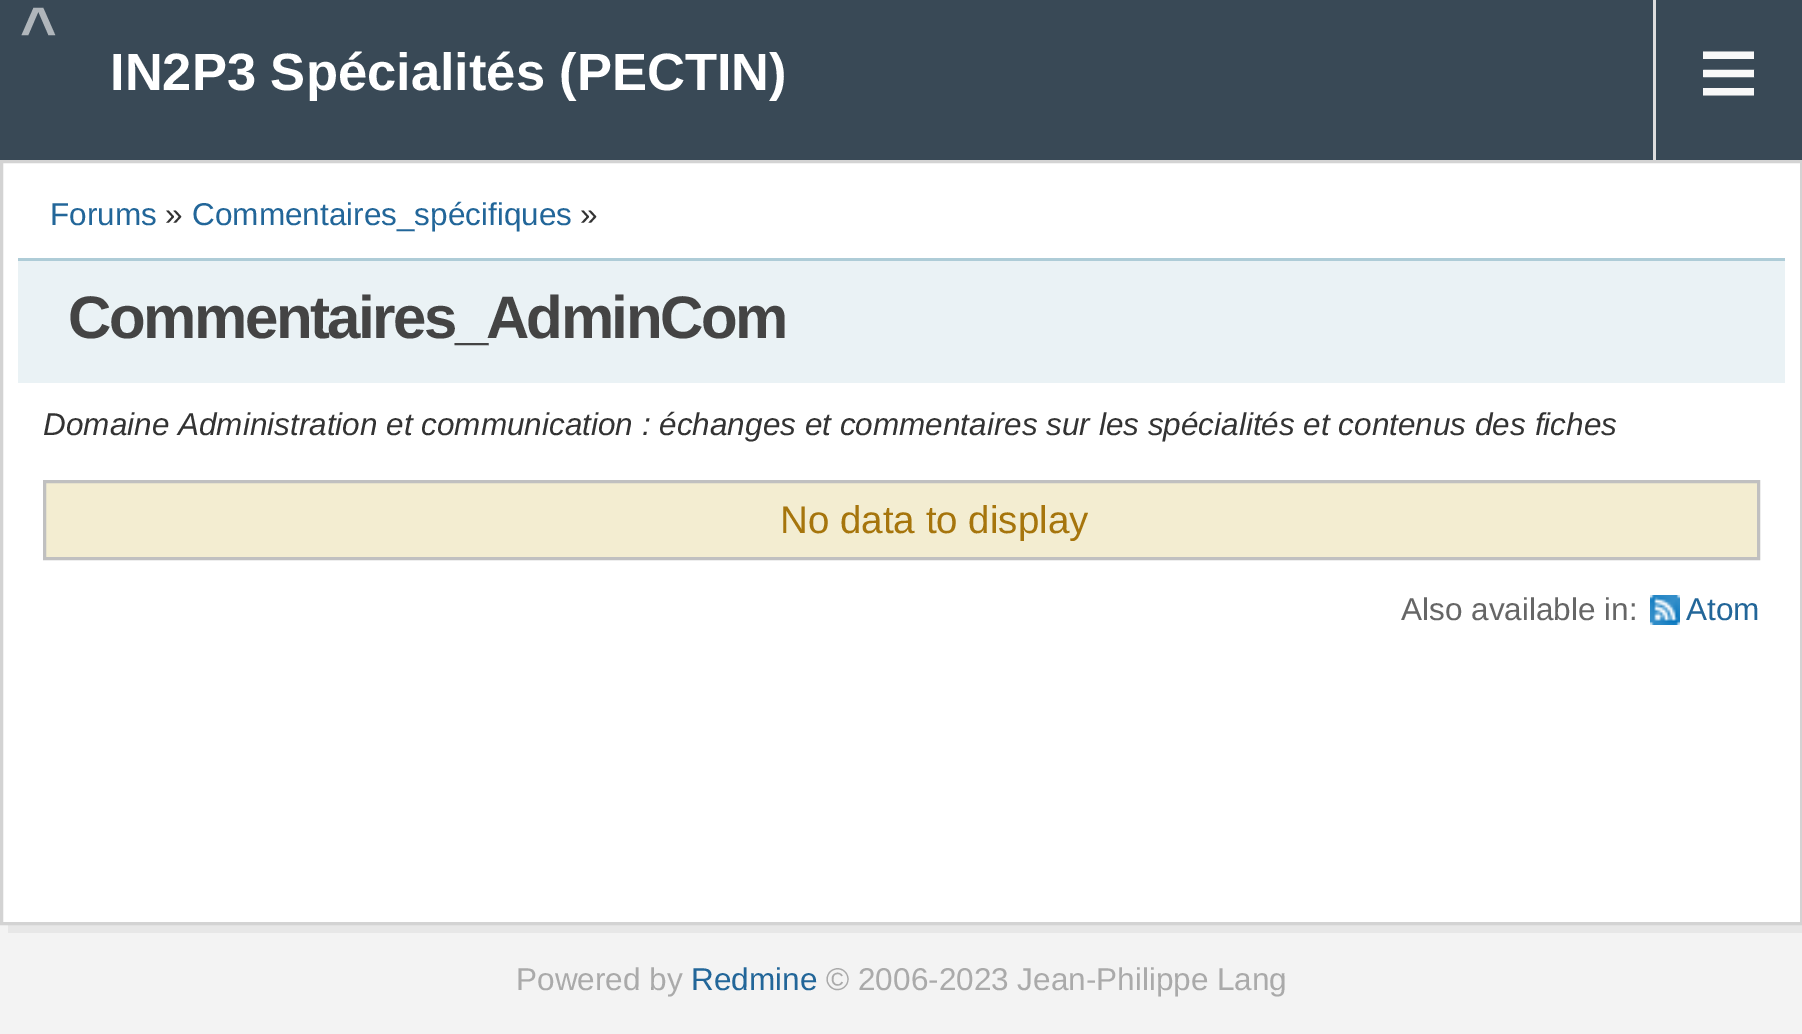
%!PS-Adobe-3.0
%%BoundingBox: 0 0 1802 1034
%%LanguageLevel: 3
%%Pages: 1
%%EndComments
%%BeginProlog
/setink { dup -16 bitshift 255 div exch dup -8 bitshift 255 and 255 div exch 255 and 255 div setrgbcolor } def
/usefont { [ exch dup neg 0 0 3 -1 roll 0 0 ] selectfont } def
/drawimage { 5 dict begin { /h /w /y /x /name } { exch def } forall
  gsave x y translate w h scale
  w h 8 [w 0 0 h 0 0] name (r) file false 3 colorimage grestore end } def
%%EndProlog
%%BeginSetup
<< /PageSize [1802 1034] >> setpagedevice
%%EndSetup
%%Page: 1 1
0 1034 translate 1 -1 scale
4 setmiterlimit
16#F3F3F3 setink
0 0 1802 1034 rectfill
16#394956 setink
0 0 1802 160 rectfill
/LiberationSans-Bold 63 usefont
16#B0B6BB setink
20 51 moveto 9 0 (^) ashow
/LiberationSans-Bold 52.5 usefont
16#FFFFFF setink
110 90 moveto (IN2P3 Spécialités \(PECTIN\)) show
16#DDDDDD setink
1653 0 3 160 rectfill
/LiberationSans-Regular 105 usefont
16#F8F8F8 setink
1698 108 moveto (≡) show
16#E7E7E7 setink
8 925 moveto 8 933 lineto 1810 933 lineto 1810 168 lineto 1802 168 lineto 1802 925 lineto closepath fill
16#FFFFFF setink
1.5 161.5 moveto 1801.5 161.5 lineto 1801.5 923.5 lineto 1.5 923.5 lineto closepath gsave fill grestore
16#D3D3D3 setink
3 setlinewidth
stroke
/LiberationSans-Regular 31.5 usefont
16#226699 setink
50 225 moveto (Forums) show
16#333333 setink
165 225 moveto (») show
16#226699 setink
192 225 moveto (Commentaires_spécifiques) show
16#333333 setink
580 225 moveto (») show
16#EAF2F5 setink
18 261 1767 122 rectfill
16#AECCD7 setink
18 258 1767 3 rectfill
/LiberationSans-Bold 60 usefont
16#444444 setink
68 338 moveto -2.5 0 (Commentaires_AdminCom) ashow
/LiberationSans-Italic 31.5 usefont
16#333333 setink
43 435 moveto (Domaine Administration et communication : échanges et commentaires sur les spécialités et contenus des fiches) show
16#F3EDD1 setink
44.5 481.5 moveto 1758.5 481.5 lineto 1758.5 558.5 lineto 44.5 558.5 lineto closepath gsave fill grestore
16#C0C0C0 setink
stroke
/LiberationSans-Regular 38.5 usefont
16#A6750C setink
780 533 moveto (No data to display) show
/LiberationSans-Regular 31.5 usefont
16#666666 setink
1401 620 moveto (Also available in:) show
(img1.raw) 1650 595 30 30 drawimage
16#226699 setink
1686 620 moveto (Atom) show
16#AAAAAA setink
516 990 moveto (Powered by) show
16#226699 setink
691 990 moveto (Redmine) show
16#AAAAAA setink
826 990 moveto (© 2006-2023 Jean-Philippe Lang) show
showpage
%%EOF
